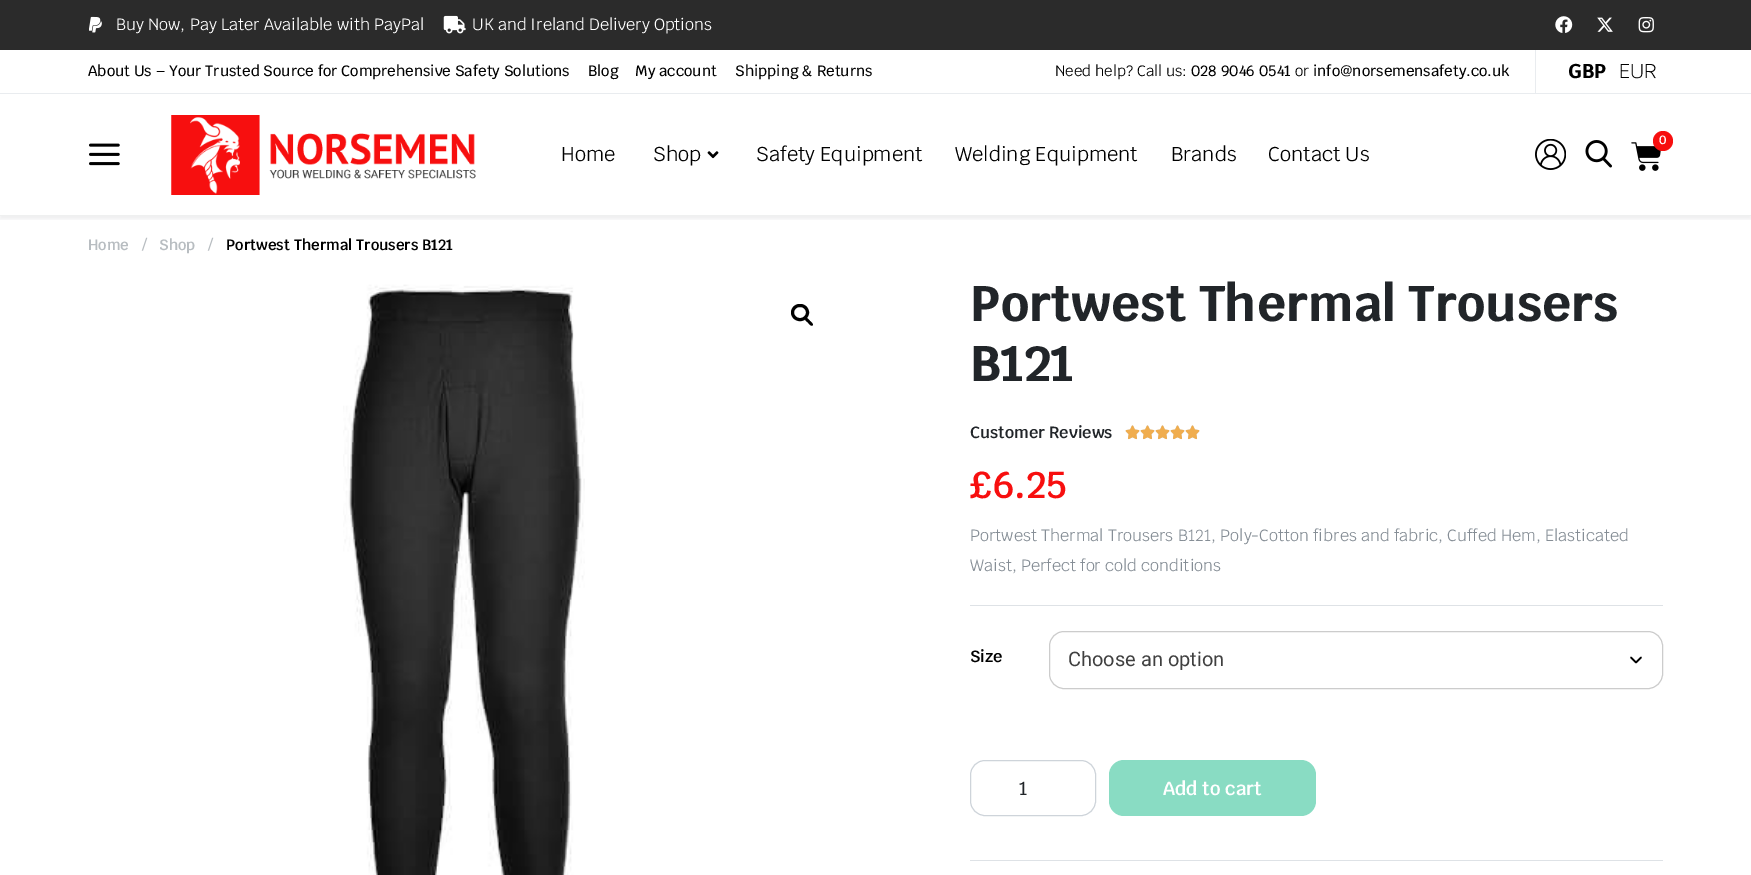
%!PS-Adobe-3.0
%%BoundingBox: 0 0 1751 875
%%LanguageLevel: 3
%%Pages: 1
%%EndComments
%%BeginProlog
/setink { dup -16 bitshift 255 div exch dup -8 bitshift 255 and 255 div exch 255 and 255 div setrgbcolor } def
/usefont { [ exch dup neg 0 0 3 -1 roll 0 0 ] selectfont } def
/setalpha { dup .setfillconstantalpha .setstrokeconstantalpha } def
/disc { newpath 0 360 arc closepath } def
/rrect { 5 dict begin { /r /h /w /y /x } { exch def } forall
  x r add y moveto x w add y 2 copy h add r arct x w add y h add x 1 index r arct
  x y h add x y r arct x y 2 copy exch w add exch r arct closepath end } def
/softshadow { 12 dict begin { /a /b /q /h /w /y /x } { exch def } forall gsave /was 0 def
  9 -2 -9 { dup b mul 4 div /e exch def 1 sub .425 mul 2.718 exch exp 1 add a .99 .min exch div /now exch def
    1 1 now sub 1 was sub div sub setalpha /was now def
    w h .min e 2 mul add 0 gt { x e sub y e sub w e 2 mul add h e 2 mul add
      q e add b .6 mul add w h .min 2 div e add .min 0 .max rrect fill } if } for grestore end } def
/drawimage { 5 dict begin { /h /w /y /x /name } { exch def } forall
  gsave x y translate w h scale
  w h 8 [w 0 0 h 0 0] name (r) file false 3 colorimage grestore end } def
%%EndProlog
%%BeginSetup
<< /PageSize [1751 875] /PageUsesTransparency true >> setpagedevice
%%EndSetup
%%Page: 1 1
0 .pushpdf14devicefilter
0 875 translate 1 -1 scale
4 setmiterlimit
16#FFFFFF setink
0 0 1751 875 rectfill
16#2B2B2B setink
0 0 1751 50 rectfill
(img1.raw) 89 16 13 17 drawimage
/Krub-Regular 16.25 usefont
16#FFFFFF setink
116 30 moveto (Buy Now, Pay Later Available with PayPal) show
(img2.raw) 443 15 23 19 drawimage
472 30 moveto (UK and Ireland Delivery Options) show
(img3.raw) 1555 16 18 17 drawimage
(img4.raw) 1597 17 16 15 drawimage
(img5.raw) 1638 17 16 16 drawimage
16#E9ECEF setink
0 93 1751 1 rectfill
/Krub-Medium 15 usefont
16#000000 setink
[
    [(About Us – Your Trusted Source for Comprehensive Safety Solutions) 88 76]
    [(Blog) 588 76]
    [(My account) 635 76]
    [(Shipping & Returns) 735 76]
] { aload pop moveto show } forall
/Krub-Regular 15 usefont
1055 76 moveto (Need help? Call us:) show
/Krub-Medium 15 usefont
1191 76 moveto (028 9046 0541) show
/Krub-Regular 15 usefont
1295 76 moveto (or) show
/Krub-Medium 15 usefont
1313 76 moveto (info@norsemensafety.co.uk) show
16#E9ECEF setink
1535 50 1 43 rectfill
/Krub-Bold 20 usefont
16#000000 setink
1568 78 moveto (GBP) show
/Krub-Light 20 usefont
1619 78 moveto (EUR) show
gsave
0 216 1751 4 rectclip
16#212529 setink
0 98 1751 121 0 2 0.07 softshadow
grestore
16#EFF0F0 setink
0 215 1751 1 rectfill
(img6.raw) 171 115 305 80 drawimage
(img7.raw) 1535 139 31 31 drawimage
(img8.raw) 1585 140 27 28 drawimage
(img9.raw) 1631 142 30 29 drawimage
16#F70F0F setink
1663 141 10 disc fill
/Krub-SemiBold 12 usefont
16#FFFFFF setink
1659 144 moveto (0) show
(img10.raw) 89 143 31 23 drawimage
/Krub-Regular 20 usefont
16#000000 setink
561 161 moveto (Home) show
653 161 moveto (Shop) show
(img11.raw) 707 151 12 8 drawimage
[
    [(Safety Equipment) 756 161]
    [(Welding Equipment) 955 161]
    [(Brands) 1171 161]
    [(Contact Us) 1268 161]
] { aload pop moveto show } forall
/Krub-SemiBold 15 usefont
16#B8BDC1 setink
[
    [(Home) 88 250]
    [(/) 142 250]
    [(Shop) 159 250]
    [(/) 208 250]
] { aload pop moveto show } forall
16#000000 setink
226 250 moveto (Portwest Thermal Trousers B121) show
(img12.raw) 343 284 242 591 drawimage
3 setlinewidth
792.5 305.5 15 14 7 rrect stroke
805.5 318 moveto 807 317 809 320 810 321 curveto 810.5 321.5 814 324 812.5 325.5 curveto 811 326.5 808.5 323.5 808 322.5 curveto 807 322 804 319.5 805.5 318 curveto closepath fill
/Krub-Bold 50 usefont
16#212529 setink
970 321 moveto (Portwest Thermal Trousers) show
970 381 moveto (B121) show
/Krub-SemiBold 16.25 usefont
970 438 moveto (Customer Reviews) show
(img13.raw) 1125 425 15 14 drawimage
(img14.raw) 1125 425 15 15 drawimage
(img13.raw) 1140 425 15 14 drawimage
(img14.raw) 1140 425 15 15 drawimage
(img13.raw) 1155 425 15 14 drawimage
(img14.raw) 1155 425 15 15 drawimage
(img13.raw) 1170 425 15 14 drawimage
(img14.raw) 1170 425 15 15 drawimage
(img13.raw) 1185 425 15 14 drawimage
(img14.raw) 1185 425 15 15 drawimage
/Krub-SemiBold 37.5 usefont
16#F70F0F setink
970 498 moveto (£6.25) show
16#DEE2E6 setink
970 605 693 1 rectfill
/Krub-Regular 16.25 usefont
16#868E96 setink
970 541 moveto (Portwest Thermal Trousers B121, Poly-Cotton fibres and fabric, Cuffed Hem, Elasticated) show
970 571 moveto (Waist, Perfect for cold conditions) show
16#DEE2E6 setink
970 860 693 1 rectfill
/Krub-SemiBold 16.25 usefont
16#000000 setink
970 662 moveto (Size) show
1.7 setlinewidth
1 setlinecap
1 setlinejoin
1631 657.5 moveto 1636 662.5 lineto 1641 657.5 lineto stroke
16#CCCCCC setink
1 setlinewidth
0 setlinecap
0 setlinejoin
1049.5 631.5 613 57 14.5 rrect stroke
/Roboto-Regular 20 usefont
16#404040 setink
1068 666 moveto (Choose an option) show
16#CED4DA setink
970.5 760.5 125 55 14.5 rrect stroke
/Krub-Medium 18.75 usefont
16#212529 setink
1019 795 moveto (1) show
16#89DCC3 setink
1109 760 207 56 15 rrect fill
/Krub-SemiBold 18.75 usefont
16#FFFFFF setink
1163 795 moveto (Add to cart) show
.poppdf14devicefilter showpage
%%EOF
